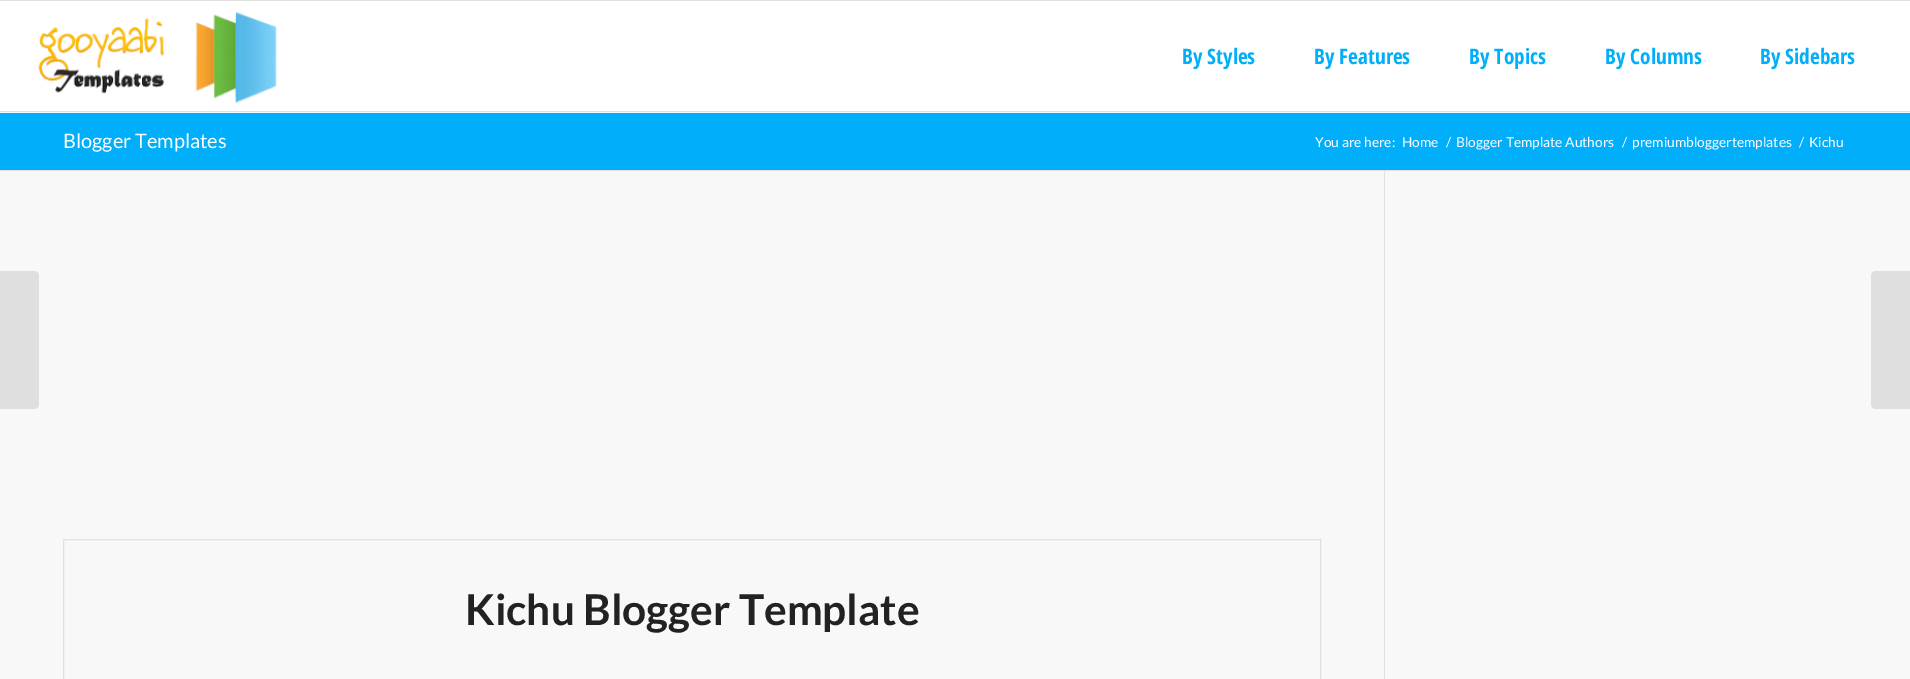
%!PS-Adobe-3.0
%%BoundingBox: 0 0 1910 679
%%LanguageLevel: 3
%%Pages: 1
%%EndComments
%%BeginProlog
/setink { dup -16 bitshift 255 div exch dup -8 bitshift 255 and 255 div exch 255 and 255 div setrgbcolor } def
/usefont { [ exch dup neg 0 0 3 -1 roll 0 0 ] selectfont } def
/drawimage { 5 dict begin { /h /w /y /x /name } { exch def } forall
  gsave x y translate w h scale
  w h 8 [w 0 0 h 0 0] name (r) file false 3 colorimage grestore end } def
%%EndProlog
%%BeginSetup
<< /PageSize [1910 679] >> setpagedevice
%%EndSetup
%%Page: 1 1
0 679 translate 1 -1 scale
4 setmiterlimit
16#FFFFFF setink
0 0 1910 679 rectfill
16#E1E1E1 setink
0 0 1910 1 rectfill
0 111 1910 1 rectfill
(img1.raw) 38 11 239 93 drawimage
/OpenSansCondensed-Bold 21.25 usefont
16#00AEF9 setink
[
    [(By Styles) 1182 64]
    [(By Features) 1314 64]
    [(By Topics) 1469 64]
    [(By Columns) 1605 64]
    [(By Sidebars) 1760 64]
] { aload pop moveto show } forall
16#F8F8F8 setink
0 171 1910 508 rectfill
16#DFDFDF setink
0 271 moveto 34 271 lineto 37 271 39 273 39 276 curveto 39 404 lineto 39 407 37 409 34 409 curveto 0 409 lineto closepath fill
16#00AEF9 setink
0 113 1910 57 rectfill
16#F2FBFF setink
0 112 1910 1 rectfill
/Lato-Regular 20 usefont
16#FFFFFF setink
63 148 moveto (Blogger Templates) show
/Lato-Regular 13.75 usefont
[
    [(You are here:) 1315 147]
    [(Home) 1402 147]
    [(/) 1446 147]
    [(Blogger Template Authors) 1456 147]
    [(/) 1622 147]
    [(premiumbloggertemplates) 1632 147]
    [(/) 1799 147]
    [(Kichu) 1809 147]
] { aload pop moveto show } forall
16#E1E1E1 setink
0 170 1910 1 rectfill
1384 171 1 508 rectfill
63.5 539.5 1257 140 rectstroke
/Lato-Bold 42.5 usefont
16#222222 setink
465 625 moveto (Kichu Blogger Template) show
16#DFDFDF setink
1876 271 moveto 1910 271 lineto 1910 409 lineto 1876 409 lineto 1873 409 1871 407 1871 404 curveto 1871 276 lineto 1871 273 1873 271 1876 271 curveto closepath fill
showpage
%%EOF
